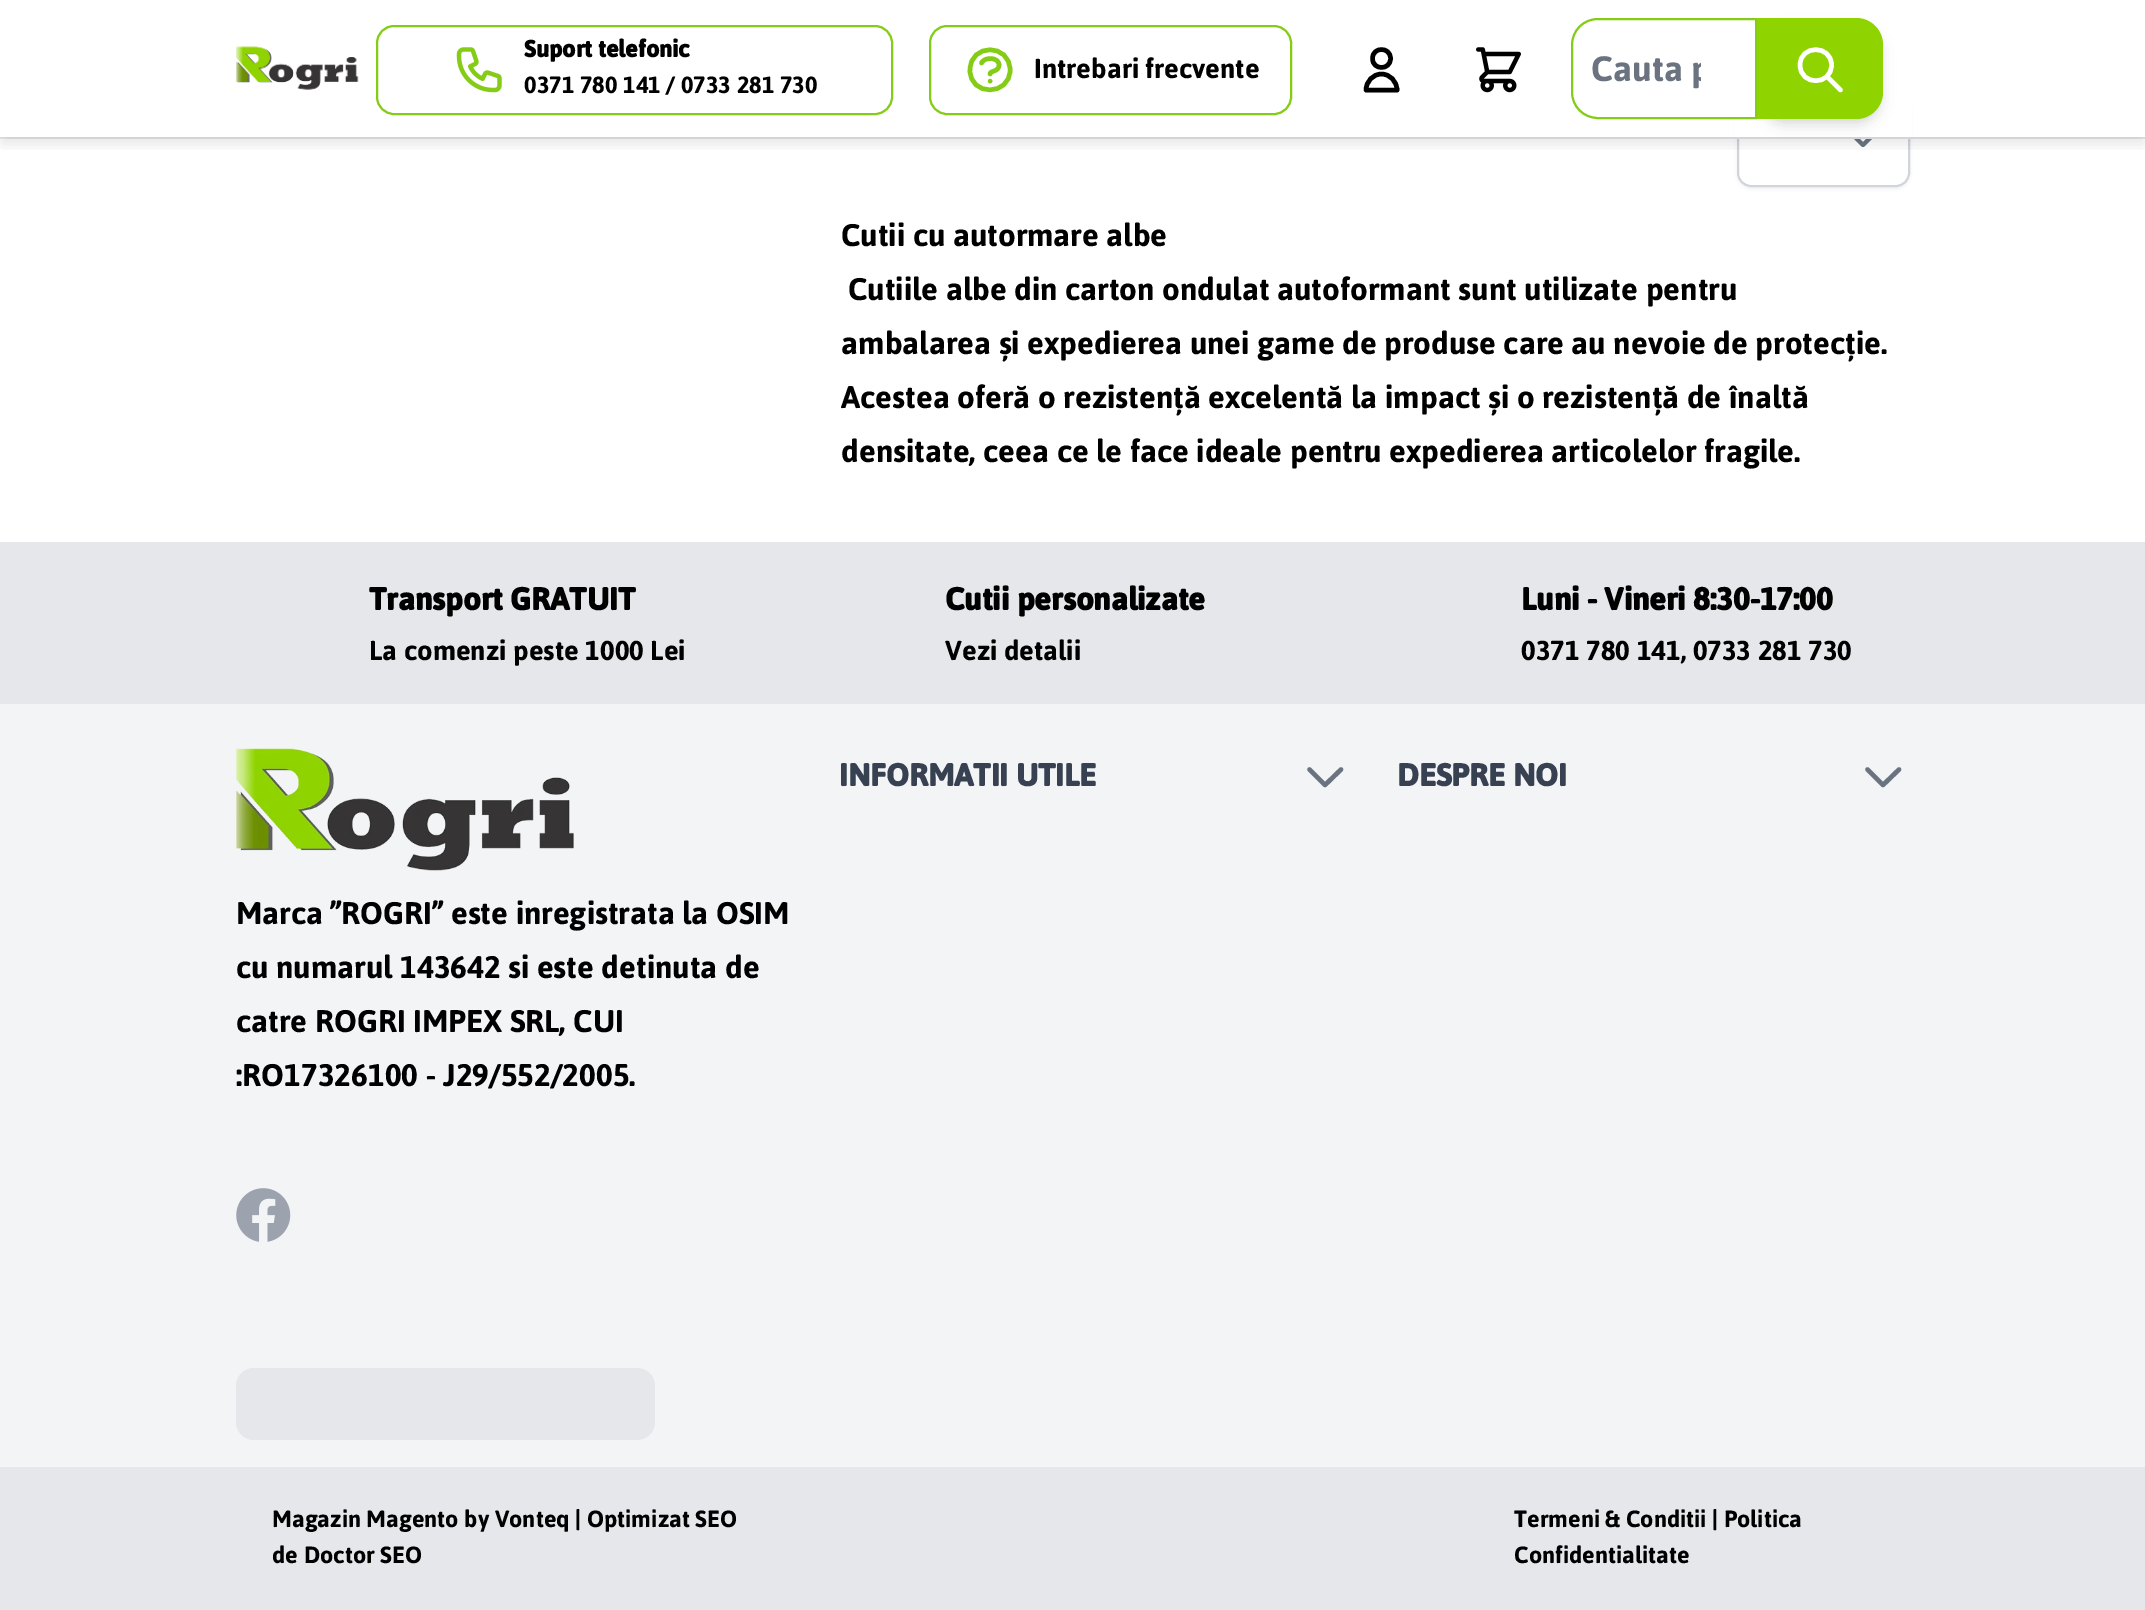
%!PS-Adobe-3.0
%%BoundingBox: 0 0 2145 1610
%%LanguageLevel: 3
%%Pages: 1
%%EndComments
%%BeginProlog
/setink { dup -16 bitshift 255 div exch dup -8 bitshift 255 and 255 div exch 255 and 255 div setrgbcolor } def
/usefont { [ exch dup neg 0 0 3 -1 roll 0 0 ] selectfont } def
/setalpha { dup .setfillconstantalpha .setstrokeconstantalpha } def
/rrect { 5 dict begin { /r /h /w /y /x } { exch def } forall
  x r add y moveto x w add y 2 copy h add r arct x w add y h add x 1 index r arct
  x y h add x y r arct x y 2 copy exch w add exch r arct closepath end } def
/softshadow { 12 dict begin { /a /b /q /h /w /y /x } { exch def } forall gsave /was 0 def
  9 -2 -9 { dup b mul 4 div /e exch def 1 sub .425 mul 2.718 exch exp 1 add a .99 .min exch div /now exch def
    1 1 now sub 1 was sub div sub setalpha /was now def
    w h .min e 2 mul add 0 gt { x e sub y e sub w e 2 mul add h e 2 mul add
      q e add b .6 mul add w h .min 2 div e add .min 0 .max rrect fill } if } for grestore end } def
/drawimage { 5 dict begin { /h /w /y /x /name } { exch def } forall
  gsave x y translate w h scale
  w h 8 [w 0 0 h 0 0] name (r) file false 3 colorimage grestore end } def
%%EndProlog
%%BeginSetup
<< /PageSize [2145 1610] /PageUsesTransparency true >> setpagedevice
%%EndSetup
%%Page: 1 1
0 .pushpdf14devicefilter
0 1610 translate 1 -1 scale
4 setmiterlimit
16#FFFFFF setink
0 0 2145 1610 rectfill
16#000000 setink
1737 95 173 94 14 2 0.05 softshadow
16#FFFFFF setink
1737 92 173 95 14 rrect fill
16#6B7280 setink
4 setlinewidth
1 setlinecap
1 setlinejoin
1852 134 moveto 1863 145 lineto 1874 134 lineto stroke
16#D1D5DB setink
2 setlinewidth
0 setlinecap
0 setlinejoin
1738 93 171 93 13 rrect stroke
16#FFFFFF setink
1735 92 177 45 rectfill
16#E5E7EB setink
0 137 2145 2 rectfill
gsave
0 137 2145 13 rectclip
16#000000 setink
2 11 2142 133 0 7 0.1 softshadow
grestore
(img1.raw) 236 46 123 44 drawimage
16#84CC16 setink
377 26 515 88 17 rrect stroke
(img2.raw) 456 47 46 46 drawimage
/Jaldi-Bold 27 usefont
16#000000 setink
524 57 moveto (Suport telefonic) show
/Jaldi-Regular 27 usefont
524 93 moveto (0371 780 141 / 0733 281 730) show
16#84CC16 setink
930 26 361 88 17 rrect stroke
4.5 setlinewidth
1 setlinecap
1 setlinejoin
981.5 63 moveto 984.5 56.5 999 57 999 65 curveto 999 72 990 70.5 990 74 curveto 990 81 moveto 990 81 lineto 1010 70 moveto 1010 96.5 969.5 96.5 970 70 curveto 970 43 1010 43 1010 70 curveto closepath stroke
/Jaldi-Regular 31.5 usefont
16#000000 setink
1034 78 moveto (Intrebari frecvente) show
1390.5 58.5 moveto 1390.5 70.5 1372.5 70.5 1372.5 58.5 curveto 1372.5 46.5 1390.5 46.5 1390.5 58.5 curveto closepath 1381.5 74 moveto 1373 74 1366 81.5 1366 90 curveto 1397 90 lineto 1397 81.5 1390 74 1381.5 74 curveto closepath stroke
(img3.raw) 1476 47 45 46 drawimage
1762 27 117 92 23 4.5 0.1 softshadow
1760 29 121 97 25 7 0.1 softshadow
16#FFFFFF setink
1598 19 moveto 1756 19 lineto 1756 118 lineto 1598 118 lineto 1583.5 118 1572 106.5 1572 92 curveto 1572 45 lineto 1572 30.5 1583.5 19 1598 19 curveto closepath gsave fill grestore
16#84CC16 setink
2 setlinewidth
0 setlinecap
0 setlinejoin
stroke
gsave
1591 34 110 70 rectclip
/Jaldi-Regular 40.5 usefont
16#6B7280 setink
1591 81 moveto (Cauta p) show
grestore
16#8FD300 setink
1757 18 moveto 1856 18 lineto 1871 18 1883 30 1883 45 curveto 1883 92 lineto 1883 107 1871 119 1856 119 curveto 1757 119 lineto closepath fill
16#FFFFFF setink
4.5 setlinewidth
1 setlinecap
1 setlinejoin
1840.5 90 moveto 1827 76.5 lineto 1831.5 65 moveto 1831.5 86 1800 86 1800 65 curveto 1800 44.5 1831.5 44.5 1831.5 65 curveto closepath stroke
/Jaldi-Regular 36 usefont
16#000000 setink
[
    [(Cutii cu autormare albe) 841 246]
    [(Cutiile albe din carton ondulat autoformant sunt utilizate pentru) 848 300]
    [(ambalarea și expedierea unei game de produse care au nevoie de protecție.) 841 354]
    [(Acestea oferă o rezistență excelentă la impact și o rezistență de înaltă) 841 408]
    [(densitate, ceea ce le face ideale pentru expedierea articolelor fragile.) 841 462]
] { aload pop moveto show } forall
16#E5E7EB setink
0 542 2145 162 rectfill
/Jaldi-Bold 36 usefont
16#000000 setink
369 610 moveto (Transport GRATUIT) show
/Jaldi-Regular 31.5 usefont
369 660 moveto (La comenzi peste 1000 Lei) show
/Jaldi-Bold 36 usefont
945 610 moveto (Cutii personalizate) show
/Jaldi-Regular 31.5 usefont
945 660 moveto (Vezi detalii) show
/Jaldi-Bold 36 usefont
1521 610 moveto (Luni - Vineri 8:30-17:00) show
/Jaldi-Regular 31.5 usefont
1521 660 moveto (0371 780 141, 0733 281 730) show
16#F3F4F6 setink
0 704 2145 763 rectfill
/Jaldi-Bold 36 usefont
16#374151 setink
839 786 moveto (INFORMATII UTILE) show
16#6B7280 setink
1341 769.5 moveto 1325 785 lineto 1309.5 769.5 lineto stroke
16#374151 setink
1397 786 moveto (DESPRE NOI) show
16#6B7280 setink
1899 769.5 moveto 1883 785 lineto 1867.5 769.5 lineto stroke
(img4.raw) 236 748 338 123 drawimage
/Jaldi-Regular 36 usefont
16#000000 setink
[
    [(Marca ”ROGRI” este inregistrata la OSIM) 236 924]
    [(cu numarul 143642 si este detinuta de) 236 978]
    [(catre ROGRI IMPEX SRL, CUI) 236 1032]
    [(:RO17326100 - J29/552/2005.) 236 1086]
] { aload pop moveto show } forall
(img5.raw) 236 1188 55 54 drawimage
16#E5E7EB setink
236 1368 419 72 18 rrect fill
0 1467 2145 143 rectfill
/Jaldi-Regular 27 usefont
16#000000 setink
[
    [(Magazin Magento by Vonteq | Optimizat SEO) 272 1527]
    [(de Doctor SEO) 272 1563]
    [(Termeni & Conditii | Politica) 1514 1527]
    [(Confidentialitate) 1514 1563]
] { aload pop moveto show } forall
.poppdf14devicefilter showpage
%%EOF
